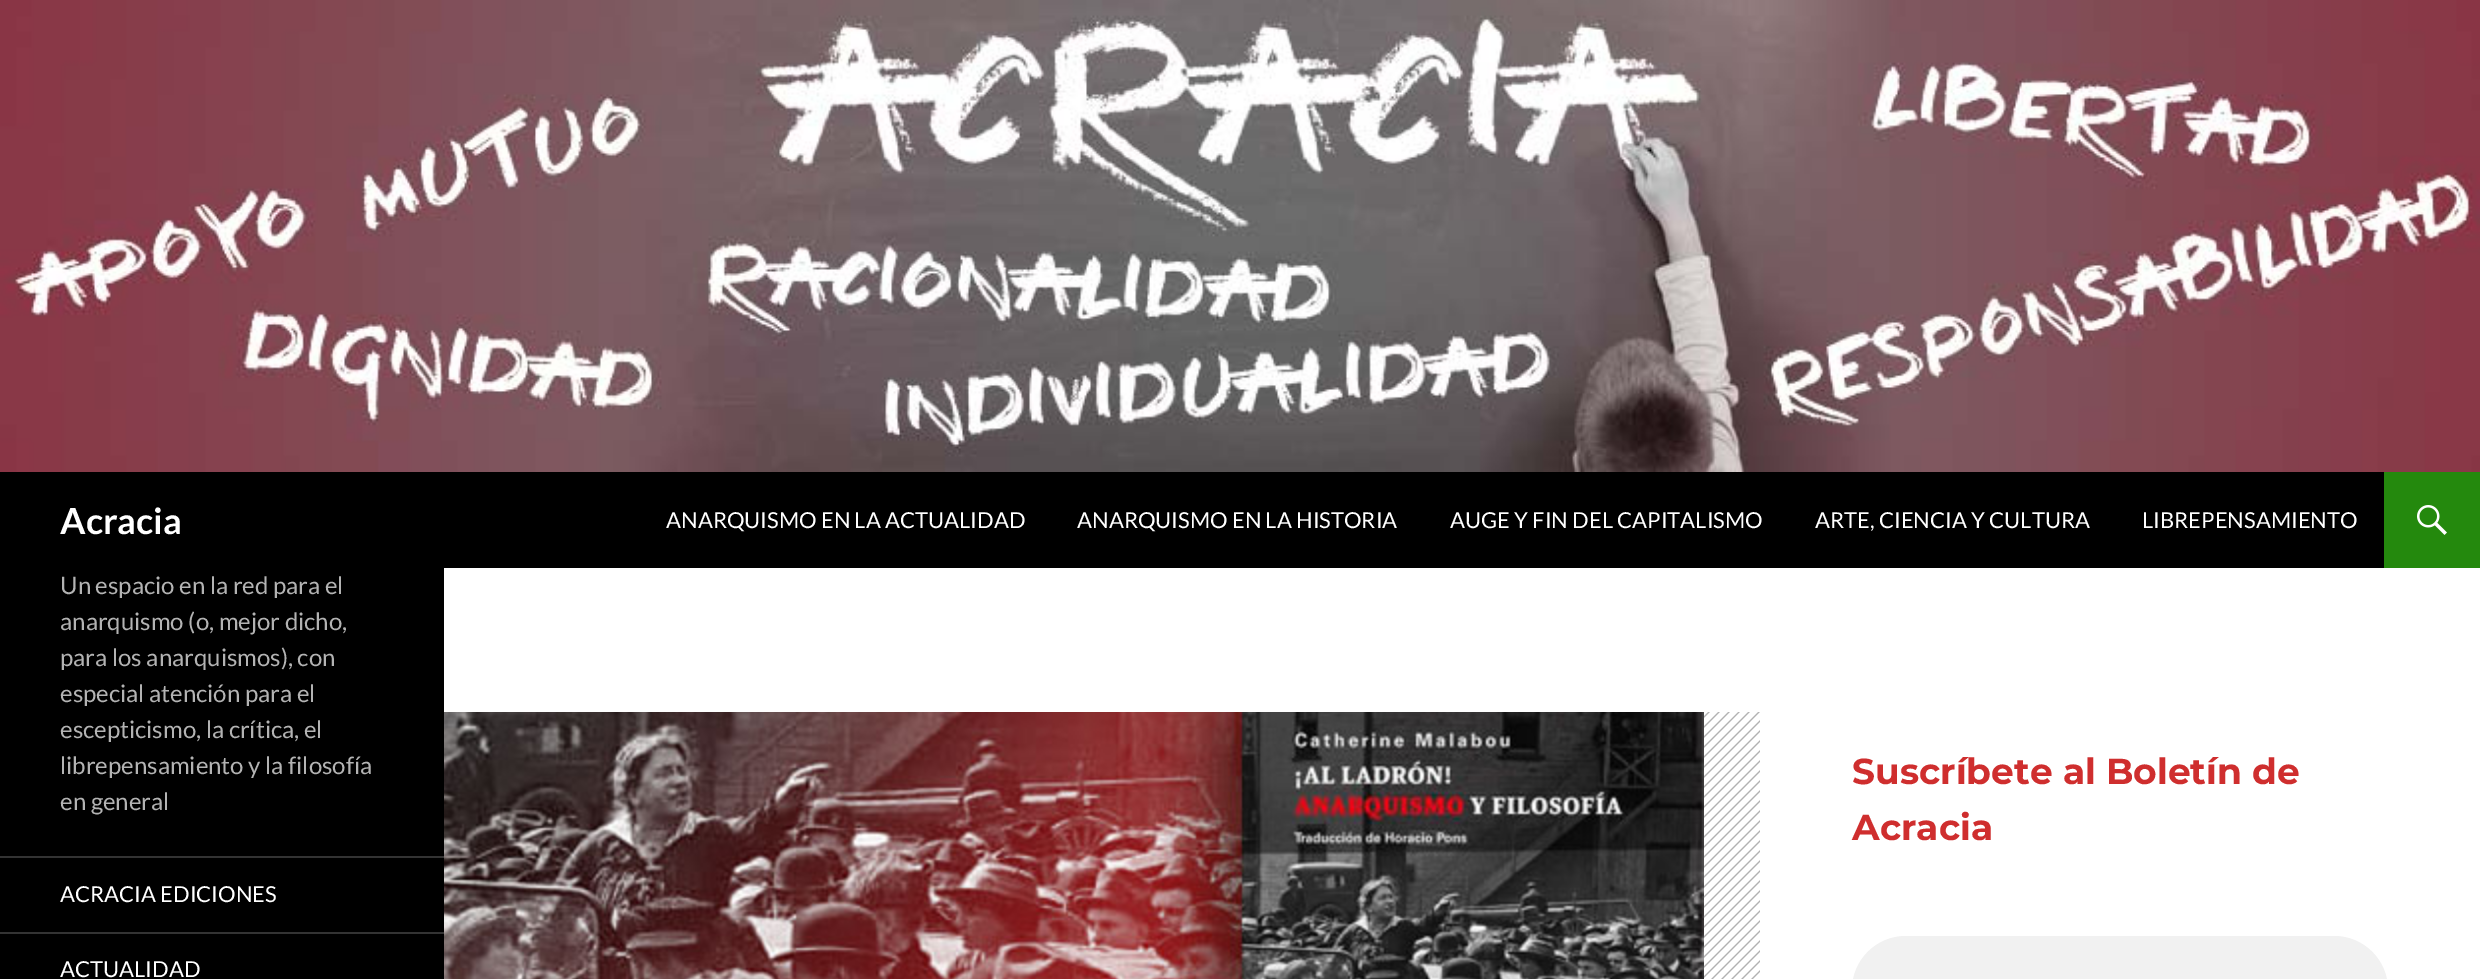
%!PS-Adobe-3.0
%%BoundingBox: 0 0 2480 979
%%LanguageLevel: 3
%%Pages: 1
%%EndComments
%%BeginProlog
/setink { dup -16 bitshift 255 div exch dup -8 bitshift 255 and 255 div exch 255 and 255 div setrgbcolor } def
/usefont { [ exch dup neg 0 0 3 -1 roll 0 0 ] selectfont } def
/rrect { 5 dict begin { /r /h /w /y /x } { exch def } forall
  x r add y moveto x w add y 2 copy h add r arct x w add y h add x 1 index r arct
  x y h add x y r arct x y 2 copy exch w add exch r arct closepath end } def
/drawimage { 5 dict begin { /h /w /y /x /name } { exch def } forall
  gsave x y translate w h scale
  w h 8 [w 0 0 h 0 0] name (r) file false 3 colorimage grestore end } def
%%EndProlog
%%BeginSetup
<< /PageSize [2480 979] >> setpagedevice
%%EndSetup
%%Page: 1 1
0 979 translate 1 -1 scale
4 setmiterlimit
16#FFFFFF setink
0 0 2480 979 rectfill
(img1.raw) 0 0 2480 472 drawimage
16#000000 setink
0 472 2384 96 rectfill
/Lato-Bold 36 usefont
16#FFFFFF setink
60 534 moveto (Acracia) show
/Lato-Regular 22 usefont
[
    [(ANARQUISMO EN LA ACTUALIDAD) 666 528]
    [(ANARQUISMO EN LA HISTORIA) 1077 528]
    [(AUGE Y FIN DEL CAPITALISMO) 1450 528]
    [(ARTE, CIENCIA Y CULTURA) 1815 528]
    [(LIBREPENSAMIENTO) 2142 528]
] { aload pop moveto show } forall
16#24890D setink
2384 472 96 96 rectfill
(img2.raw) 2417 505 30 30 drawimage
16#000000 setink
0 568 444 411 rectfill
/Lato-Regular 24 usefont
16#B3B3B3 setink
[
    [(Un espacio en la red para el) 60 594]
    [(anarquismo \(o, mejor dicho,) 60 630]
    [(para los anarquismos\), con) 60 666]
    [(especial atención para el) 60 702]
    [(escepticismo, la crítica, el) 60 738]
    [(librepensamiento y la filosofía) 60 774]
    [(en general) 60 810]
] { aload pop moveto show } forall
16#333333 setink
0 856 444 2 rectfill
/Lato-Regular 22 usefont
16#FFFFFF setink
60 902 moveto (ACRACIA EDICIONES) show
16#333333 setink
0 932 444 2 rectfill
16#FFFFFF setink
60 977 moveto (ACTUALIDAD) show
16#B2B2B2 setink
1704 712 56 267 rectfill
(img3.raw) 1704 712 56 267 drawimage
(img4.raw) 444 712 1260 267 drawimage
/Montserrat-Bold 36 usefont
16#CF2E2E setink
1852 784 moveto (Suscríbete al Boletín de) show
1852 840 moveto (Acracia) show
16#F1F1F1 setink
1852 936 536 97 54 rrect fill
showpage
%%EOF
